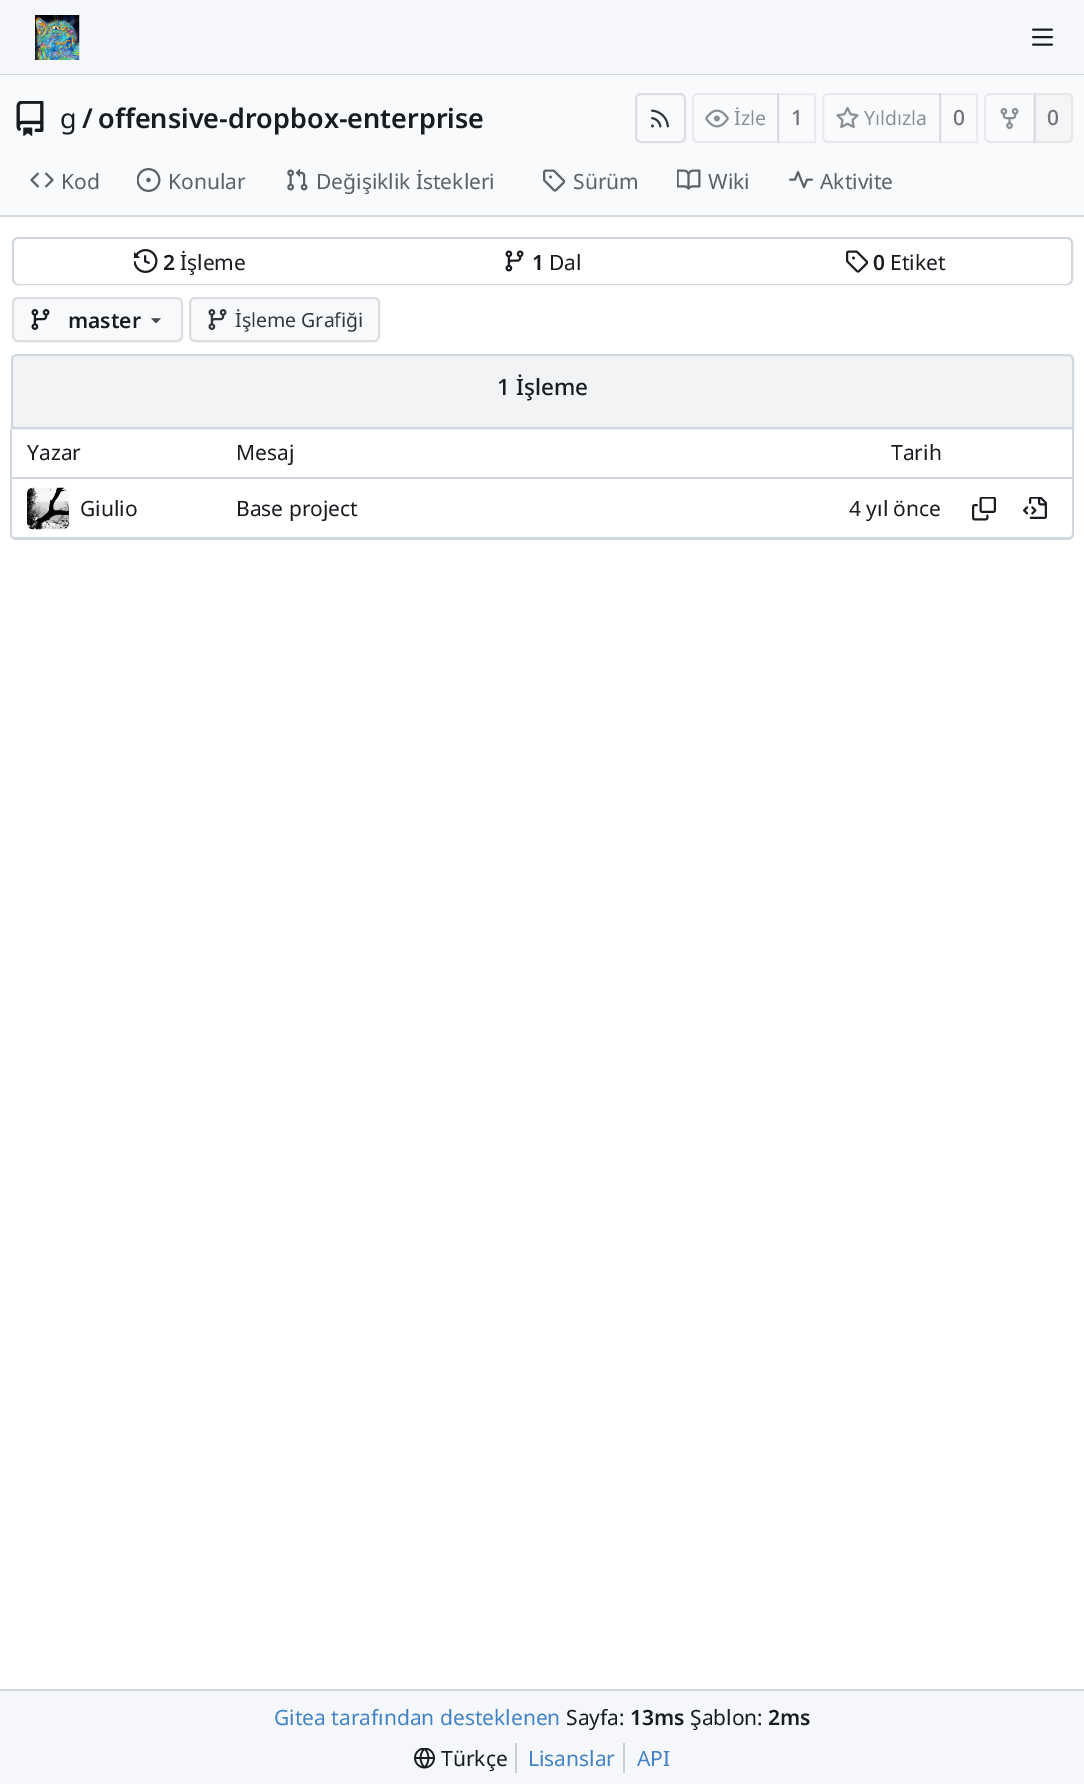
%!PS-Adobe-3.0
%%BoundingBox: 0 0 1084 1784
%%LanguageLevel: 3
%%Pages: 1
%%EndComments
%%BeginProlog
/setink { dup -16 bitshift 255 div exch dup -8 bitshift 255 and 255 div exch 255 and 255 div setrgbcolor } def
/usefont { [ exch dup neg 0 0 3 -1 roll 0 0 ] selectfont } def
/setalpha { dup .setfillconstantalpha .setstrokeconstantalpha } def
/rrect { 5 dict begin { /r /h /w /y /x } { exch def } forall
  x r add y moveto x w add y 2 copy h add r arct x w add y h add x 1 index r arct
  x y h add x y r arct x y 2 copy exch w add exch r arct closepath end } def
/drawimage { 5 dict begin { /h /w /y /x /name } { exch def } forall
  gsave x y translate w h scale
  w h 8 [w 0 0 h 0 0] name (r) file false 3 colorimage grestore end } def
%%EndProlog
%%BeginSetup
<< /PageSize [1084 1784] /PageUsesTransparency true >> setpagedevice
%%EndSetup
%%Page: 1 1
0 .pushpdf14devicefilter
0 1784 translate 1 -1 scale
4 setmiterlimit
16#FFFFFF setink
0 0 1084 1784 rectfill
16#F6F7FA setink
0 0 1084 74 rectfill
16#D0D7DE setink
0 74 1084 1 rectfill
(img1.raw) 35 15 45 45 drawimage
(img2.raw) 1032 28 21 18 drawimage
16#F9FAFB setink
0 75 1084 140 rectfill
(img3.raw) 16 101 28 35 drawimage
/NotoSans-Regular 27 usefont
16#181C21 setink
60 128 moveto (g) show
/NotoSans-SemiBold 27 usefont
82 128 moveto (/) show
98 128 moveto (offensive-dropbox-enterprise) show
16#DDDEE1 setink
2 setlinewidth
636 94 49 48 5 rrect stroke
(img4.raw) 651 109 18 19 drawimage
16#E9EAED setink
698 94 moveto 778 94 lineto 778 142 lineto 698 142 lineto 695 142 693 140 693 137 curveto 693 99 lineto 693 96 695 94 698 94 curveto closepath stroke
(img5.raw) 705 109 24 19 drawimage
/NotoSans-Regular 19.5 usefont
16#8A8E91 setink
734 125 moveto (İzle) show
0.06 setalpha
16#000017 setink
778 94 37 48 rectstroke
/NotoSans-Medium 21 usefont
1 setalpha
16#717376 setink
791 125 moveto (1) show
16#E9EAED setink
828 94 moveto 940 94 lineto 940 142 lineto 828 142 lineto 825 142 823 140 823 137 curveto 823 99 lineto 823 96 825 94 828 94 curveto closepath stroke
(img6.raw) 836 107 23 22 drawimage
/NotoSans-Regular 19.5 usefont
16#8A8E91 setink
864 125 moveto (Yıldızla) show
0.06 setalpha
16#000017 setink
940 94 37 48 rectstroke
/NotoSans-Medium 21 usefont
1 setalpha
16#717376 setink
953 125 moveto (0) show
16#E9EAED setink
990 94 moveto 1034 94 lineto 1034 142 lineto 990 142 lineto 987 142 985 140 985 137 curveto 985 99 lineto 985 96 987 94 990 94 curveto closepath stroke
(img7.raw) 1000 108 19 21 drawimage
0.04 setalpha
16#707171 setink
1034 93 39 50 rectfill
0.11 setalpha
16#70717E setink
1035 94 moveto 1067 94 lineto 1070 94 1072 96 1072 99 curveto 1072 137 lineto 1072 140 1070 142 1067 142 curveto 1035 142 lineto closepath stroke
1 setalpha
16#717376 setink
1047 125 moveto (0) show
(img8.raw) 30 172 24 16 drawimage
/NotoSans-Regular 21 usefont
16#5B6167 setink
61 189 moveto (Kod) show
(img9.raw) 137 168 24 24 drawimage
168 189 moveto (Konular) show
(img10.raw) 287 169 21 22 drawimage
316 189 moveto (Değişiklik İstekleri) show
(img11.raw) 543 169 23 23 drawimage
573 189 moveto (Sürüm) show
(img12.raw) 677 169 24 21 drawimage
708 189 moveto (Wiki) show
(img13.raw) 789 171 24 18 drawimage
820 189 moveto (Aktivite) show
16#D0D7DE setink
0 215 1084 2 rectfill
13 238 1059 46 5 rrect stroke
16#FFFFFF setink
14 239 1057 45 6 rrect fill
(img14.raw) 134 249 24 24 drawimage
/NotoSans-SemiBold 21 usefont
16#181C21 setink
163 270 moveto (2) show
/NotoSans-Regular 21 usefont
180 270 moveto (İşleme) show
(img15.raw) 505 250 19 22 drawimage
/NotoSans-SemiBold 21 usefont
532 270 moveto (1) show
/NotoSans-Regular 21 usefont
549 270 moveto (Dal) show
(img16.raw) 846 250 23 23 drawimage
/NotoSans-SemiBold 21 usefont
873 270 moveto (0) show
/NotoSans-Regular 21 usefont
890 270 moveto (Etiket) show
16#F8F9FB setink
13 298 169 43 5 rrect gsave fill grestore
16#DCDDE1 setink
stroke
(img17.raw) 31 309 19 21 drawimage
/NotoSans-SemiBold 21 usefont
16#181C21 setink
68 328 moveto (master) show
(img18.raw) 151 318 10 6 drawimage
16#F8F9FB setink
190 298 189 43 5 rrect gsave fill grestore
16#DCDDE1 setink
stroke
(img19.raw) 208 309 19 21 drawimage
/NotoSans-Regular 19.5 usefont
16#30363B setink
235 327 moveto (İşleme Grafiği) show
16#F1F3F5 setink
17 355 moveto 1068 355 lineto 1071 355 1073 357 1073 360 curveto 1073 428 lineto 12 428 lineto 12 360 lineto 12 357 14 355 17 355 curveto closepath gsave fill grestore
16#D0D7DE setink
stroke
/NotoSans-Medium 22.5 usefont
16#181C21 setink
497 395 moveto (1 İşleme) show
16#D0D7DE setink
10 429 moveto 1074 429 lineto 1074 534 lineto 1074 537 1071 540 1068 540 curveto 16 540 lineto 13 540 10 537 10 534 curveto closepath 12 429 moveto 1072 429 lineto 1072 534 lineto 1072 536 1070 538 1068 538 curveto 16 538 lineto 14 538 12 536 12 534 curveto closepath eofill
12 477 1061 2 rectfill
/NotoSans-Regular 21 usefont
16#181C21 setink
[
    [(Yazar) 27 460]
    [(Mesaj) 236 460]
    [(Tarih) 891 460]
] { aload pop moveto show } forall
gsave
12 429 moveto 1073 429 lineto 1073 534 lineto 1073 537 1071 539 1068 539 curveto 17 539 lineto 14 539 12 537 12 534 curveto closepath clip newpath
16#D0D7DE setink
12 537 1061 2 rectfill
grestore
(img20.raw) 27 487 42 43 drawimage
[
    [(Giulio) 80 516]
    [(Base project) 236 516]
    [(4 yıl önce) 849 516]
] { aload pop moveto show } forall
(img21.raw) 972 497 24 24 drawimage
(img22.raw) 1023 497 24 22 drawimage
16#F6F7FA setink
0 1691 1084 93 rectfill
16#D0D7DE setink
0 1689 1084 2 rectfill
16#4183C4 setink
274 1725 moveto (Gitea tarafından desteklenen) show
16#181C21 setink
566 1725 moveto (Sayfa:) show
/NotoSans-SemiBold 21 usefont
630 1725 moveto (13ms) show
/NotoSans-Regular 21 usefont
690 1725 moveto (Şablon:) show
/NotoSans-SemiBold 21 usefont
768 1725 moveto (2ms) show
(img23.raw) 414 1748 21 21 drawimage
/NotoSans-Regular 21 usefont
441 1766 moveto (Türkçe) show
16#C7CED5 setink
515 1743 2 30 rectfill
16#4183C4 setink
528 1766 moveto (Lisanslar) show
16#C7CED5 setink
623 1743 2 30 rectfill
16#4183C4 setink
637 1766 moveto (API) show
.poppdf14devicefilter showpage
%%EOF
